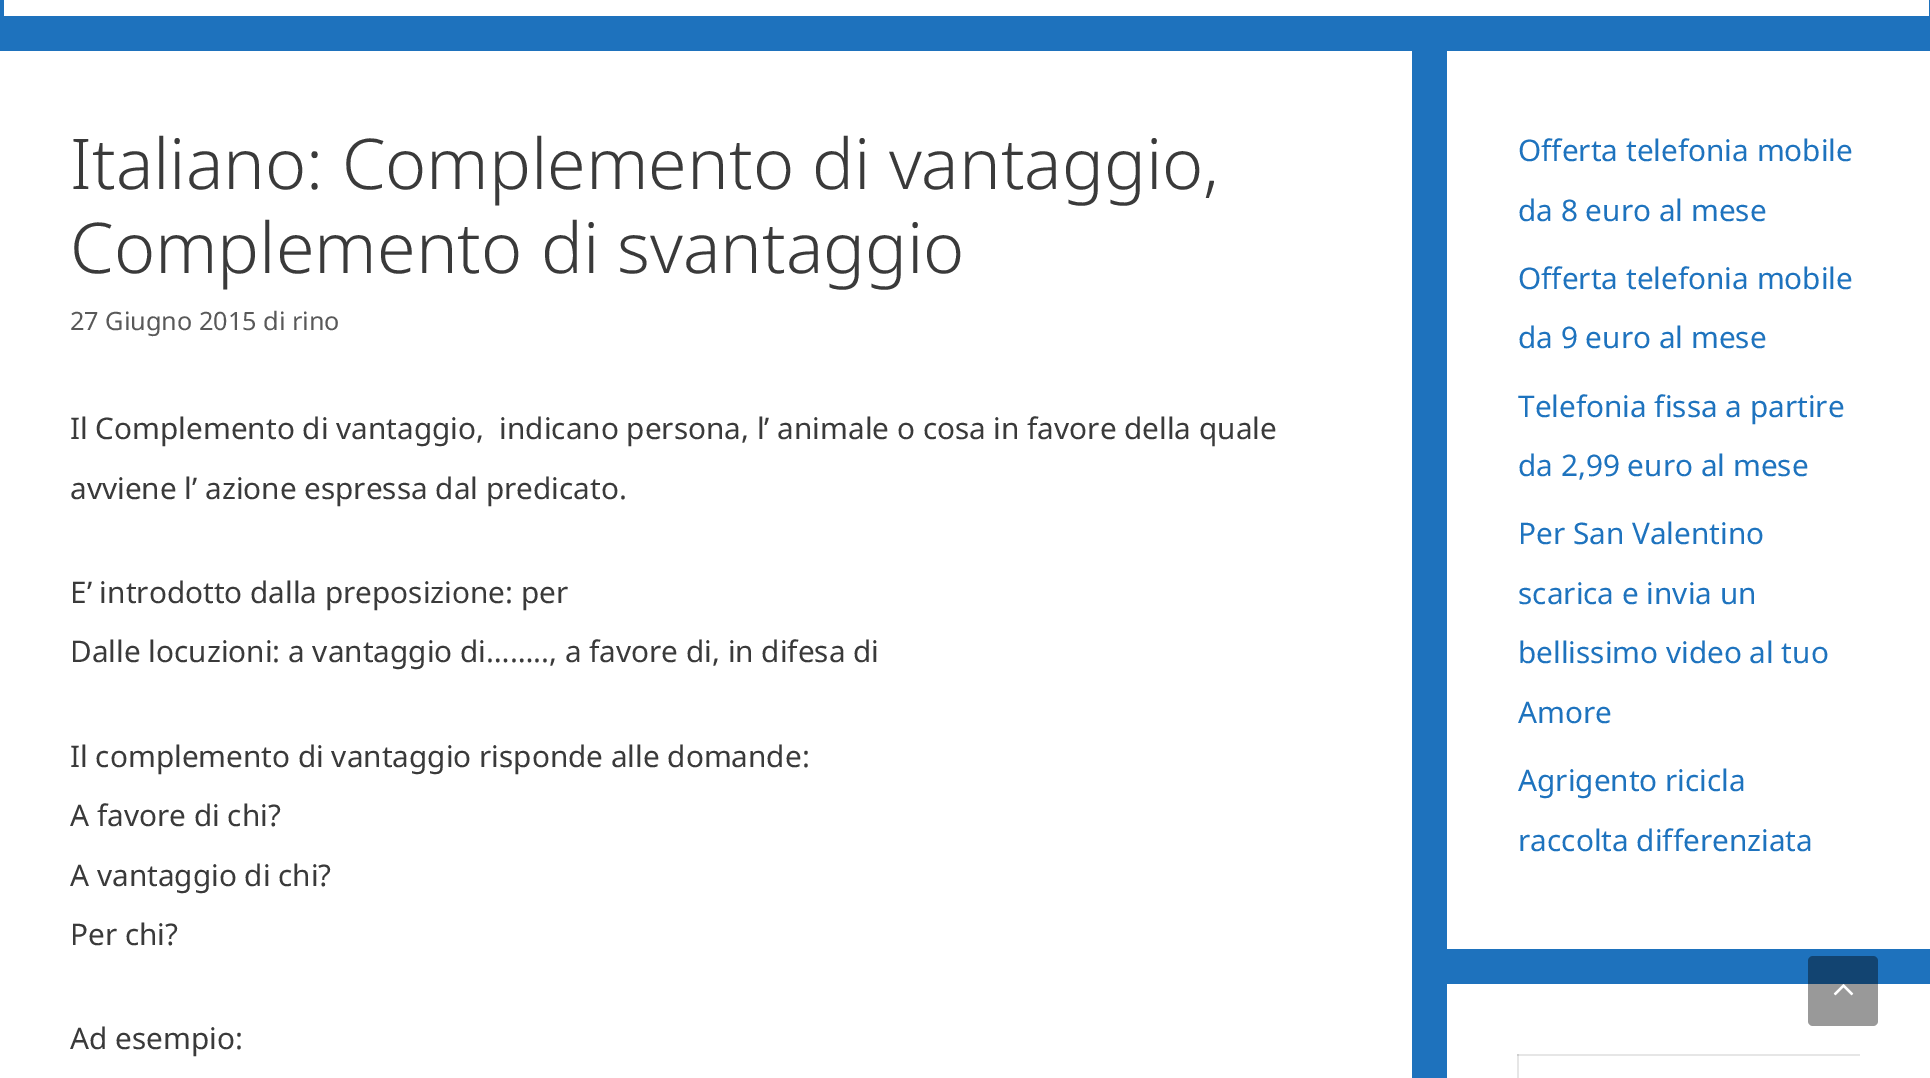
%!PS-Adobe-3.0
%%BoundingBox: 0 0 1930 1078
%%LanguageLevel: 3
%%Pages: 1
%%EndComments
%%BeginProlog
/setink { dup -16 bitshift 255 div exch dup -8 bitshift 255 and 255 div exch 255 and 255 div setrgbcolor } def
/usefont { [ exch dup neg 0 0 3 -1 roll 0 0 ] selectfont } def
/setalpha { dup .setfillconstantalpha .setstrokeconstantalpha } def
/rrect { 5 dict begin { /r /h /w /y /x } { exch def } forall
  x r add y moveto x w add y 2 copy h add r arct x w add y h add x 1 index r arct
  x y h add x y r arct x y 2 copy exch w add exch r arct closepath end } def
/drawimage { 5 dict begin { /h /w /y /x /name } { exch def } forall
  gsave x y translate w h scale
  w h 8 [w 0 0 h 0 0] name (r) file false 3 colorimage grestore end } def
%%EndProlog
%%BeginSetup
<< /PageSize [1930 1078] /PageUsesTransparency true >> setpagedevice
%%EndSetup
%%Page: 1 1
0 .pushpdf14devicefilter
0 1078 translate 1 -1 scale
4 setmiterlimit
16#1E72BD setink
0 0 1930 1078 rectfill
16#FFFFFF setink
4 0 1925 16 rectfill
0 51 1412 1027 rectfill
/NotoSans-Light 70 usefont
16#3A3A3A setink
70 189 moveto (Italiano: Complemento di vantaggio,) show
70 273 moveto (Complemento di svantaggio) show
/NotoSans-Regular 25.25 usefont
16#595959 setink
70 330 moveto (27 Giugno 2015 di rino) show
/NotoSans-Regular 29.75 usefont
16#3A3A3A setink
[
    [(Il Complemento di vantaggio,  indicano persona, l’ animale o cosa in favore della quale) 70 439]
    [(avviene l’ azione espressa dal predicato.) 70 499]
    [(E’ introdotto dalla preposizione: per) 70 603]
    [(Dalle locuzioni: a vantaggio di…….., a favore di, in difesa di) 70 662]
    [(Il complemento di vantaggio risponde alle domande:) 70 767]
    [(A favore di chi?) 70 826]
    [(A vantaggio di chi?) 70 886]
    [(Per chi?) 70 945]
    [(Ad esempio:) 70 1049]
] { aload pop moveto show } forall
16#FFFFFF setink
1447 51 483 898 rectfill
16#1E73BE setink
[
    [(Offerta telefonia mobile) 1518 161]
    [(da 8 euro al mese) 1518 221]
    [(Offerta telefonia mobile) 1518 289]
    [(da 9 euro al mese) 1518 348]
    [(Telefonia fissa a partire) 1518 417]
    [(da 2,99 euro al mese) 1518 476]
    [(Per San Valentino) 1518 544]
    [(scarica e invia un) 1518 604]
    [(bellissimo video al tuo) 1518 663]
    [(Amore) 1518 723]
    [(Agrigento ricicla) 1518 791]
    [(raccolta differenziata) 1518 851]
] { aload pop moveto show } forall
[
    [1447 984 483 94 16#FFFFFF]
    [1517 1054 2 24 16#E6E6E6]
    [1517 1054 343 2 16#E6E6E6]
    [1517 1054 2 2 16#CFCFCF]
] { aload pop setink rectfill } forall
0.4 setalpha
16#000000 setink
1808 956 70 70 5 rrect fill
1 setalpha
(img1.raw) 1833 984 21 12 drawimage
.poppdf14devicefilter showpage
%%EOF
